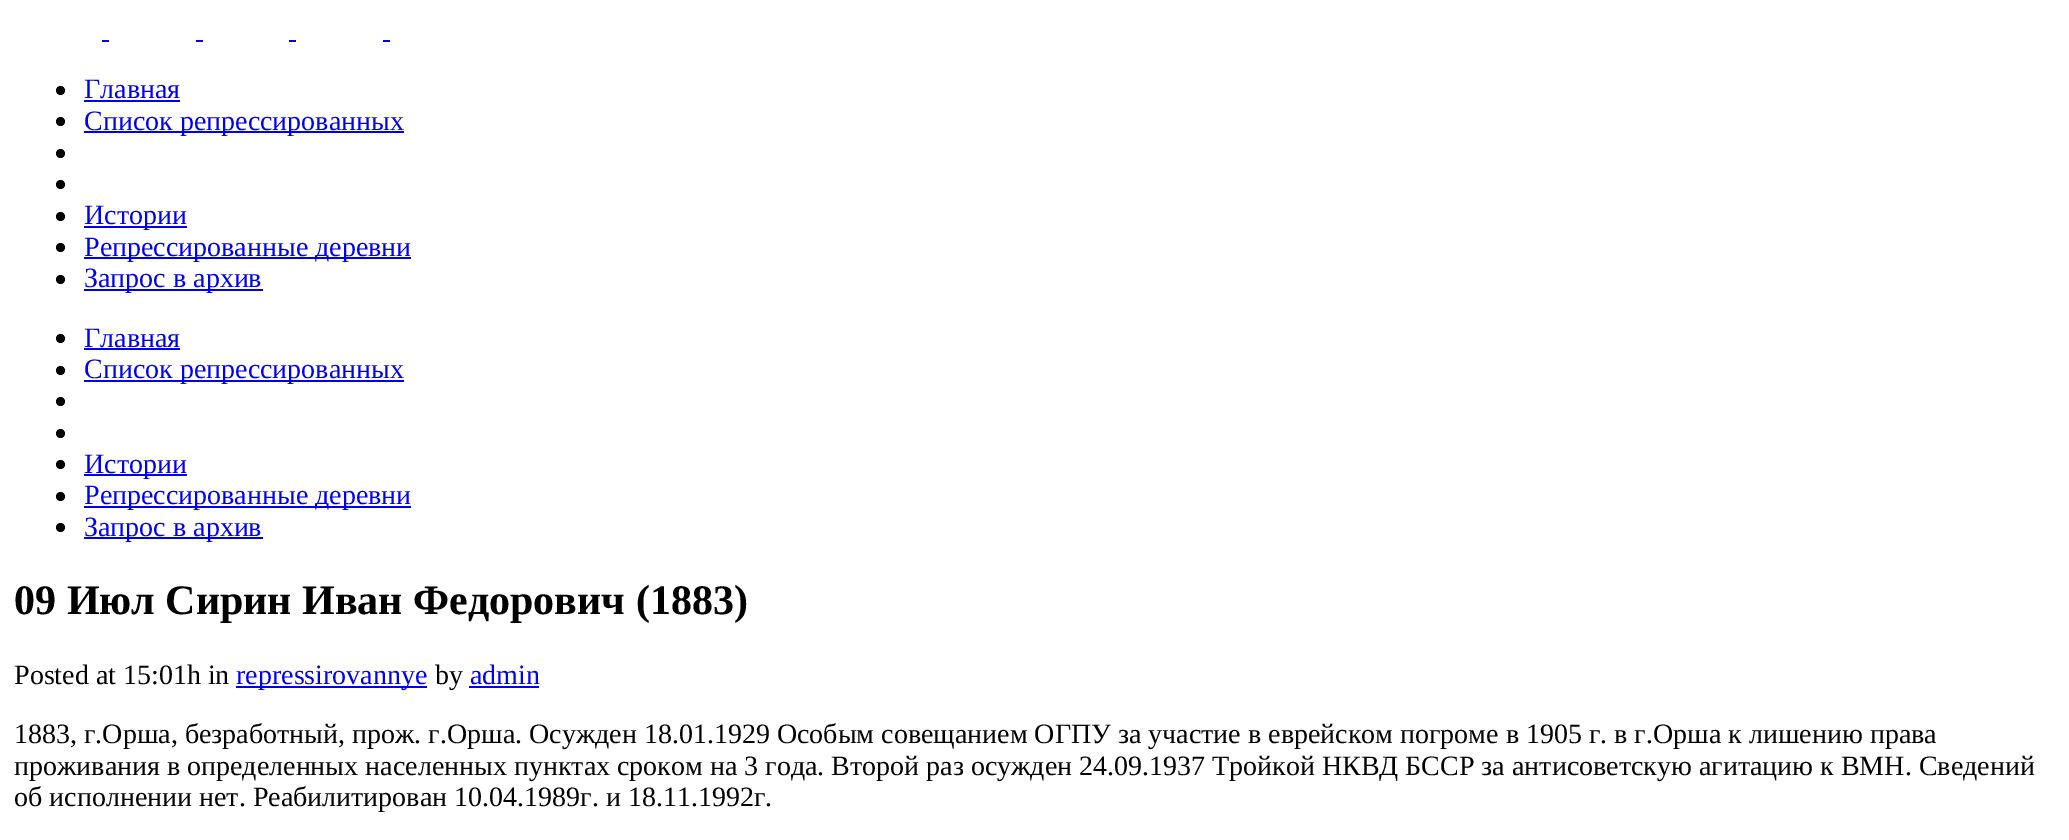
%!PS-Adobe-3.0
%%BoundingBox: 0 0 2069 840
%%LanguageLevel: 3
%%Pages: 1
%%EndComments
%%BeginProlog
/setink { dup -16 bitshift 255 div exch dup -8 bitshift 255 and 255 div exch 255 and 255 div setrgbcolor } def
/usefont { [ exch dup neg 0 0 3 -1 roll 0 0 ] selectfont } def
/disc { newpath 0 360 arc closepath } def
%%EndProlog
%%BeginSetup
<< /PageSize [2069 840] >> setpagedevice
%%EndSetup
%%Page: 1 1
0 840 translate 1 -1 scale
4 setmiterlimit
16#FFFFFF setink
0 0 2069 840 rectfill
[
    [102 40 7 2 16#0000EE]
    [196 40 7 2 16#0000EE]
    [289 40 7 2 16#0000EE]
    [383 40 7 2 16#0000EE]
] { aload pop setink rectfill } forall
16#000000 setink
60.5 90.5 4.5 disc fill
/LiberationSerif-Regular 28 usefont
16#0000EE setink
84 98 moveto (Главная) show
84 100 96 2 rectfill
16#000000 setink
60.5 121.5 4.5 disc fill
16#0000EE setink
84 131 320 2 rectfill
84 130 moveto (Список репрессированных) show
16#000000 setink
60.5 153.5 4.5 disc fill
60.5 184.5 4.5 disc fill
60.5 216.5 4.5 disc fill
16#0000EE setink
84 226 103 2 rectfill
84 224 moveto (Истории) show
16#000000 setink
60.5 247.5 4.5 disc fill
16#0000EE setink
84 257 327 2 rectfill
84 256 moveto (Репрессированные деревни) show
16#000000 setink
60.5 279.5 4.5 disc fill
16#0000EE setink
84 289 179 2 rectfill
84 287 moveto (Запрос в архив) show
16#000000 setink
60.5 338.5 4.5 disc fill
16#0000EE setink
84 347 moveto (Главная) show
84 348 96 2 rectfill
16#000000 setink
60.5 370.5 4.5 disc fill
16#0000EE setink
84 380 320 2 rectfill
84 378 moveto (Список репрессированных) show
16#000000 setink
60.5 401.5 4.5 disc fill
60.5 433.5 4.5 disc fill
60.5 464.5 4.5 disc fill
16#0000EE setink
84 474 103 2 rectfill
84 473 moveto (Истории) show
16#000000 setink
60.5 496.5 4.5 disc fill
16#0000EE setink
84 506 327 2 rectfill
84 504 moveto (Репрессированные деревни) show
16#000000 setink
60.5 527.5 4.5 disc fill
16#0000EE setink
84 537 179 2 rectfill
84 536 moveto (Запрос в архив) show
/LiberationSerif-Bold 42 usefont
16#000000 setink
14 614 moveto (09 Июл Сирин Иван Федорович \(1883\)) show
/LiberationSerif-Regular 28 usefont
14 684 moveto (Posted at 15:01h in) show
16#0000EE setink
236 686 191 2 rectfill
236 684 moveto (repressirovannye) show
16#000000 setink
435 684 moveto (by) show
16#0000EE setink
469 686 70 2 rectfill
470 684 moveto (admin) show
16#000000 setink
[
    [(1883, г.Орша, безработный, прож. г.Орша. Осужден 18.01.1929 Особым совещанием ОГПУ за участие в еврейском погроме в 1905 г. в г.Орша к лишению права) 14 743]
    [(проживания в определенных населенных пунктах сроком на 3 года. Второй раз осужден 24.09.1937 Тройкой НКВД БССР за антисоветскую агитацию к ВМН. Сведений) 14 775]
    [(об исполнении нет. Реабилитирован 10.04.1989г. и 18.11.1992г.) 14 806]
] { aload pop moveto show } forall
showpage
%%EOF
